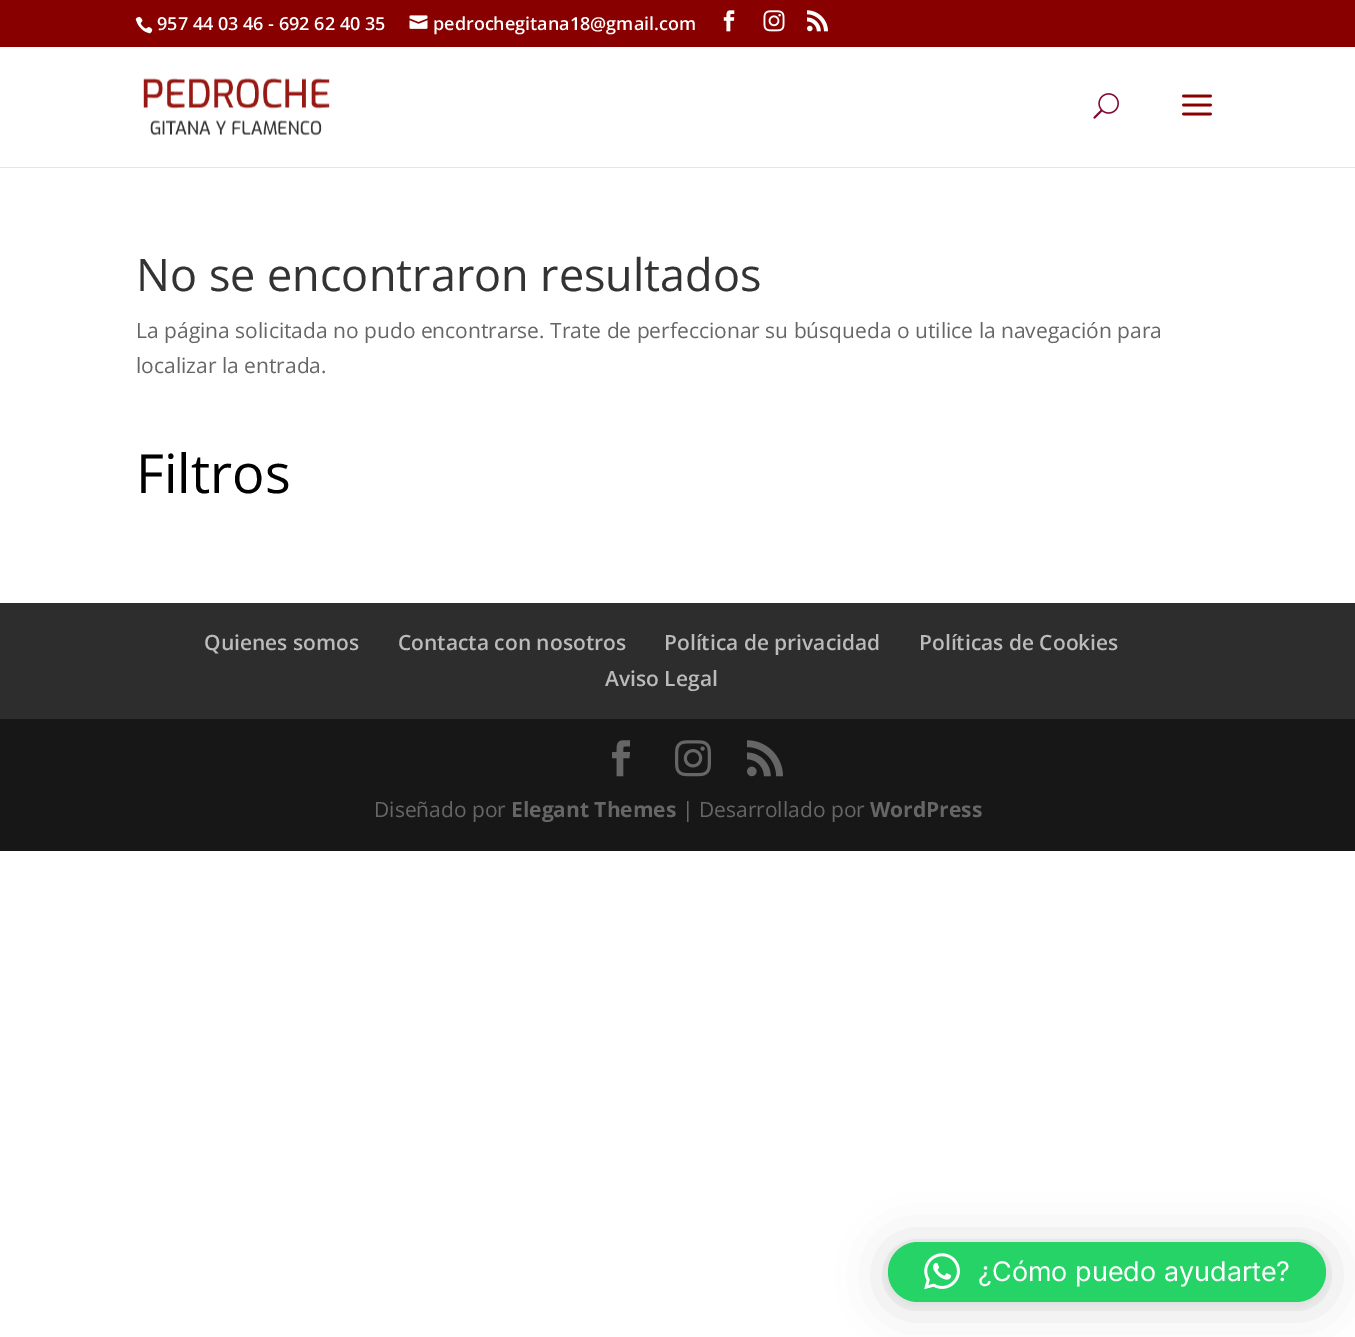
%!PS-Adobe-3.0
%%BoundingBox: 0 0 1355 1337
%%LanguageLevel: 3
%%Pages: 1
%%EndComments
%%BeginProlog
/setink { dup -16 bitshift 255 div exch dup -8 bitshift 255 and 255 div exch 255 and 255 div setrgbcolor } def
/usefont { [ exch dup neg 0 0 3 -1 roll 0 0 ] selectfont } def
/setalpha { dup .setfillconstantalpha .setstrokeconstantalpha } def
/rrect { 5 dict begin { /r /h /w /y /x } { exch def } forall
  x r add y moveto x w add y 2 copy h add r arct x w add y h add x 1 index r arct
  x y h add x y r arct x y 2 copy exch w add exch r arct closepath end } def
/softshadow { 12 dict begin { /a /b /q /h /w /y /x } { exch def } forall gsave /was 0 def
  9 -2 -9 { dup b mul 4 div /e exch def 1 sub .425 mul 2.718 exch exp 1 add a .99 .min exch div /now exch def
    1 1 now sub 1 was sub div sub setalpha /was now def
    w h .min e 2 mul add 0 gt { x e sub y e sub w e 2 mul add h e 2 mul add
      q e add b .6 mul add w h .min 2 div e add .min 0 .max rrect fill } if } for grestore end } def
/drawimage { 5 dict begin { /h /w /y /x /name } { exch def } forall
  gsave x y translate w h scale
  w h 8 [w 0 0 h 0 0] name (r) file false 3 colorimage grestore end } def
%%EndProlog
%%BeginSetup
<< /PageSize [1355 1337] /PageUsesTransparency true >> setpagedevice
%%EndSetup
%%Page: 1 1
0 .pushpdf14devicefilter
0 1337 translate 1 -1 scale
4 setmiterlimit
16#FFFFFF setink
0 0 1355 1337 rectfill
16#880000 setink
0 0 1355 47 rectfill
(img1.raw) 135 16 18 18 drawimage
/OpenSans-SemiBold 18 usefont
16#FFFFFF setink
157 30 moveto (957 44 03 46 - 692 62 40 35) show
(img2.raw) 409 15 19 14 drawimage
433 30 moveto (pedrochegitana18@gmail.com) show
(img3.raw) 723 10 12 22 drawimage
(img4.raw) 763 10 22 22 drawimage
(img5.raw) 807 10 21 22 drawimage
16#E6E6E6 setink
0 167 1355 1 rectfill
(img6.raw) 143 78 187 58 drawimage
(img7.raw) 1093 93 26 26 drawimage
(img8.raw) 1182 94 30 22 drawimage
/OpenSans-Regular 45 usefont
16#333333 setink
136 291 moveto (No se encontraron resultados) show
/OpenSans-Regular 21 usefont
16#666666 setink
136 338 moveto (La página solicitada no pudo encontrarse. Trate de perfeccionar su búsqueda o utilice la navegación para) show
136 373 moveto (localizar la entrada.) show
/OpenSans-Regular 54 usefont
16#000000 setink
136 493 moveto (Filtros) show
16#2D2D2D setink
0 603 1355 116 rectfill
/OpenSans-SemiBold 21 usefont
16#BBBBBB setink
[
    [(Quienes somos) 204 650]
    [(Contacta con nosotros) 398 650]
    [(Política de privacidad) 664 650]
    [(Políticas de Cookies) 919 650]
    [(Aviso Legal) 605 686]
] { aload pop moveto show } forall
16#171717 setink
0 719 1355 132 rectfill
(img9.raw) 612 740 19 37 drawimage
(img10.raw) 675 740 36 37 drawimage
(img11.raw) 747 740 36 37 drawimage
/OpenSans-Regular 21 usefont
16#666666 setink
374 817 moveto (Diseñado por) show
/OpenSans-Bold 21 usefont
511 817 moveto (Elegant Themes) show
/OpenSans-Regular 21 usefont
682 817 moveto (| Desarrollado por) show
/OpenSans-Bold 21 usefont
870 817 moveto (WordPress) show
16#000000 setink
888 1245 438 60 30 24 0.16 softshadow
888 1244 438 60 30 4.5 0.06 softshadow
16#25D366 setink
888 1242 438 60 30 rrect fill
(img12.raw) 924 1253 36 37 drawimage
/Inter-Regular 27 usefont
16#FFFFFF setink
978 1281 moveto (¿Cómo puedo ayudarte?) show
.poppdf14devicefilter showpage
%%EOF
